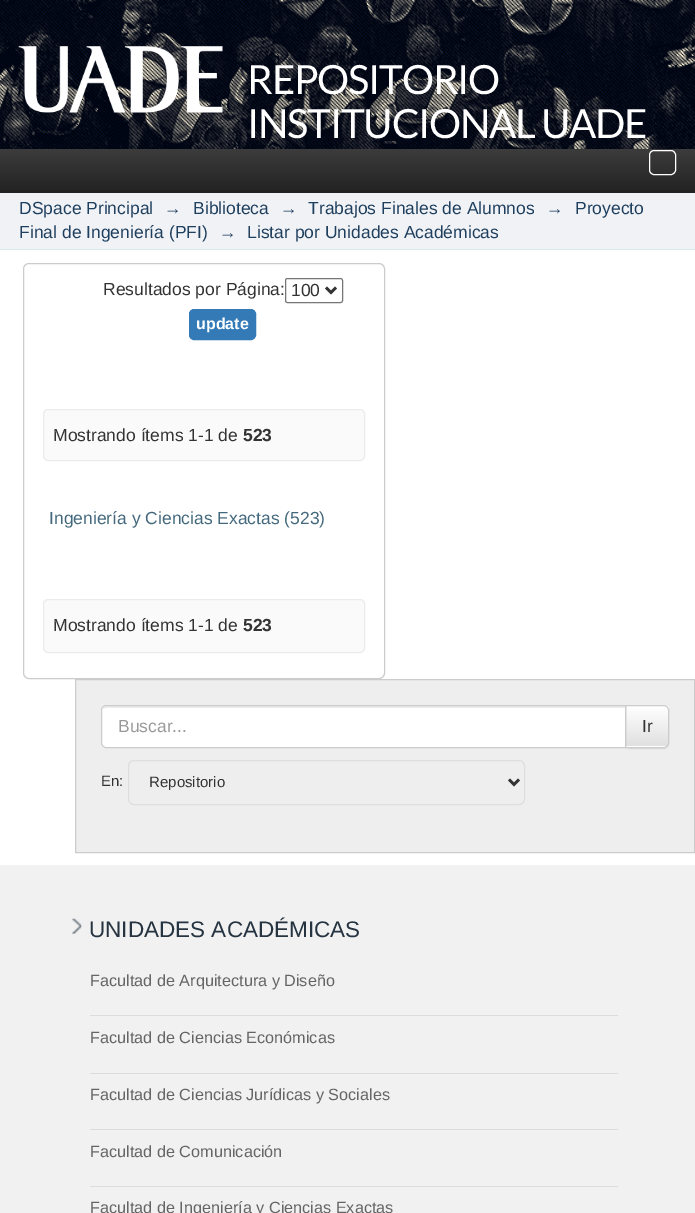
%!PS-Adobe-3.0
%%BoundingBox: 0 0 695 1213
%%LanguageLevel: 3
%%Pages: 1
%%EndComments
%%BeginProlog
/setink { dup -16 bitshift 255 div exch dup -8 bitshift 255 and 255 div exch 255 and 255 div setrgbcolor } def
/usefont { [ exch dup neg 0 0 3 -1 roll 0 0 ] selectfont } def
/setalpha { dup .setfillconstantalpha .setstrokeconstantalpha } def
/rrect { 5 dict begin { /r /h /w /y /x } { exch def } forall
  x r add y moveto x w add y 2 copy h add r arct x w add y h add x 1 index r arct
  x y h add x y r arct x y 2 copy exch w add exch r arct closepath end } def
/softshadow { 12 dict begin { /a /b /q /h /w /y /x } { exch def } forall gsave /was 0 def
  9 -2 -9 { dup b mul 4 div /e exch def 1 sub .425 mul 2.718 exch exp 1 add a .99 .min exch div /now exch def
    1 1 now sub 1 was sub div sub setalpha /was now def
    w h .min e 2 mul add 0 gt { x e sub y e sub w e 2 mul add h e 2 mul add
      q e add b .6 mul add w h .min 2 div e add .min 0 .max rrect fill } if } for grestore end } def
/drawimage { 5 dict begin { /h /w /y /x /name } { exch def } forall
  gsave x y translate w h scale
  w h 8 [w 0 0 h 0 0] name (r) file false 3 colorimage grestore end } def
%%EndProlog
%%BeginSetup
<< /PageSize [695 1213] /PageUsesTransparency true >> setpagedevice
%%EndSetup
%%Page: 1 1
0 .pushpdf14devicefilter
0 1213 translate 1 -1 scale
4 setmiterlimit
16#FFFFFF setink
0 0 695 1213 rectfill
(img1.raw) 0 0 695 149 drawimage
(img2.raw) 0 0 695 149 drawimage
(img3.raw) 18 46 205 67 drawimage
/Lato-Regular 40.25 usefont
247 94 moveto -1.25 0 (REPOSITORIO) ashow
247 138 moveto -1.25 0 (INSTITUCIONAL UADE) ashow
gsave 0 149 moveto 695 149 lineto 695 193 lineto 0 193 lineto closepath clip newpath
<< /ShadingType 2 /ColorSpace /DeviceRGB /Coords [348 149 348 193] /Extend [true true] /Function << /FunctionType 2 /Domain [0 1] /C0 [0.235 0.235 0.235] /C1 [0.133 0.133 0.133] /N 1 >> >> shfill grestore
649.5 150.5 26 24 4.5 rrect stroke
16#F0F2F5 setink
0 193 695 56 rectfill
16#D8E8EB setink
0 249 695 1 rectfill
/LiberationSans-Regular 17.5 usefont
16#1F3F5E setink
[
    [(DSpace Principal) 19 214]
    [(→) 164 214]
    [(Biblioteca) 193 214]
    [(→) 280 214]
    [(Trabajos Finales de Alumnos) 308 214]
    [(→) 546 214]
    [(Proyecto) 575 214]
    [(Final de Ingeniería \(PFI\)) 19 238]
    [(→) 219 238]
    [(Listar por Unidades Académicas) 247 238]
] { aload pop moveto show } forall
16#CCCCCC setink
23.5 263.5 361 415 5.5 rrect stroke
16#333333 setink
103 295 moveto (Resultados por Página:) show
16#767676 setink
285.5 278.5 57 24 2 rrect stroke
16#333333 setink
2.5 setlinewidth
326 287.5 moveto 331 292.5 lineto 336 287.5 lineto stroke
291 296 moveto (100) show
16#337AB7 setink
189.5 309.5 66 30 4.5 rrect gsave fill grestore
1 setlinewidth
stroke
/LiberationSans-Bold 16 usefont
16#FFFFFF setink
196 329 moveto (update) show
16#FAFAFA setink
43.5 409.5 321 51 4.5 rrect gsave fill grestore
16#EBEBEB setink
stroke
/LiberationSans-Regular 17.5 usefont
16#333333 setink
53 441 moveto (Mostrando ítems 1-1 de) show
/LiberationSans-Bold 17.5 usefont
243 441 moveto (523) show
/LiberationSans-Regular 17.5 usefont
16#44697D setink
49 524 moveto (Ingeniería y Ciencias Exactas \(523\)) show
16#FAFAFA setink
43.5 599.5 321 53 4.5 rrect gsave fill grestore
16#EBEBEB setink
stroke
16#333333 setink
53 631 moveto (Mostrando ítems 1-1 de) show
/LiberationSans-Bold 17.5 usefont
243 631 moveto (523) show
16#EEEEEE setink
75.5 679.5 moveto 694.5 679.5 lineto 694.5 852.5 lineto 75.5 852.5 lineto closepath gsave fill grestore
16#CCCCCC setink
stroke
16#000000 setink
625 706 44 43 5 0.5 0.07 softshadow
16#FFFFFF setink
625 705 moveto 664 705 lineto 667 705 669 707 669 710 curveto 669 743 lineto 669 746 667 748 664 748 curveto 625 748 lineto closepath fill
gsave
625 705 moveto 664 705 lineto 667 705 669 707 669 710 curveto 669 743 lineto 669 746 667 748 664 748 curveto 625 748 lineto closepath clip newpath
gsave 626 706 moveto 669 706 lineto 669 746 lineto 626 746 lineto closepath clip newpath
<< /ShadingType 2 /ColorSpace /DeviceRGB /Coords [647 706 647 746] /Extend [true true] /Function << /FunctionType 2 /Domain [0 1] /C0 [1 1 1] /C1 [0.878 0.878 0.878] /N 1 >> >> shfill grestore
grestore
16#CCCCCC setink
625.5 705.5 moveto 664 705.5 lineto 666.5 705.5 668.5 707.5 668.5 710 curveto 668.5 743 lineto 668.5 745.5 666.5 747.5 664 747.5 curveto 625.5 747.5 lineto closepath stroke
16#FFFFFF setink
106 705 moveto 626 705 lineto 626 748 lineto 106 748 lineto 103 748 101 746 101 743 curveto 101 710 lineto 101 707 103 705 106 705 curveto closepath fill
16#ECECEC setink
106 708 moveto 625 708 lineto 625 706 lineto 107 706 lineto 105 706 104 707 103 709 curveto closepath fill
16#CCCCCC setink
106 705.5 moveto 625.5 705.5 lineto 625.5 747.5 lineto 106 747.5 lineto 103.5 747.5 101.5 745.5 101.5 743 curveto 101.5 710 lineto 101.5 707.5 103.5 705.5 106 705.5 curveto closepath stroke
/LiberationSans-Regular 17.5 usefont
16#999999 setink
118 732 moveto (Buscar...) show
16#333333 setink
642 732 moveto (Ir) show
/LiberationSans-Regular 15 usefont
101 786 moveto (En:) show
16#DEDEDE setink
128.5 760.5 396 44 5.5 rrect stroke
16#333333 setink
2.5 setlinewidth
509 779.5 moveto 514 784.5 lineto 519 779.5 lineto stroke
149 787 moveto (Repositorio) show
16#F1F1F1 setink
0 865 695 348 rectfill
(img4.raw) 72 918 10 16 drawimage
/LiberationSans-Regular 22.5 usefont
16#263340 setink
89 937 moveto (UNIDADES ACADÉMICAS) show
16#DCDCDC setink
90 1015 528 1 rectfill
/LiberationSans-Regular 16.25 usefont
16#656565 setink
90 986 moveto (Facultad de Arquitectura y Diseño) show
16#DCDCDC setink
90 1073 528 1 rectfill
16#656565 setink
90 1043 moveto (Facultad de Ciencias Económicas) show
16#DCDCDC setink
90 1129 528 1 rectfill
16#656565 setink
90 1100 moveto (Facultad de Ciencias Jurídicas y Sociales) show
16#DCDCDC setink
90 1186 528 1 rectfill
16#656565 setink
90 1157 moveto (Facultad de Comunicación) show
90 1213 moveto (Facultad de Ingeniería y Ciencias Exactas) show
.poppdf14devicefilter showpage
%%EOF
